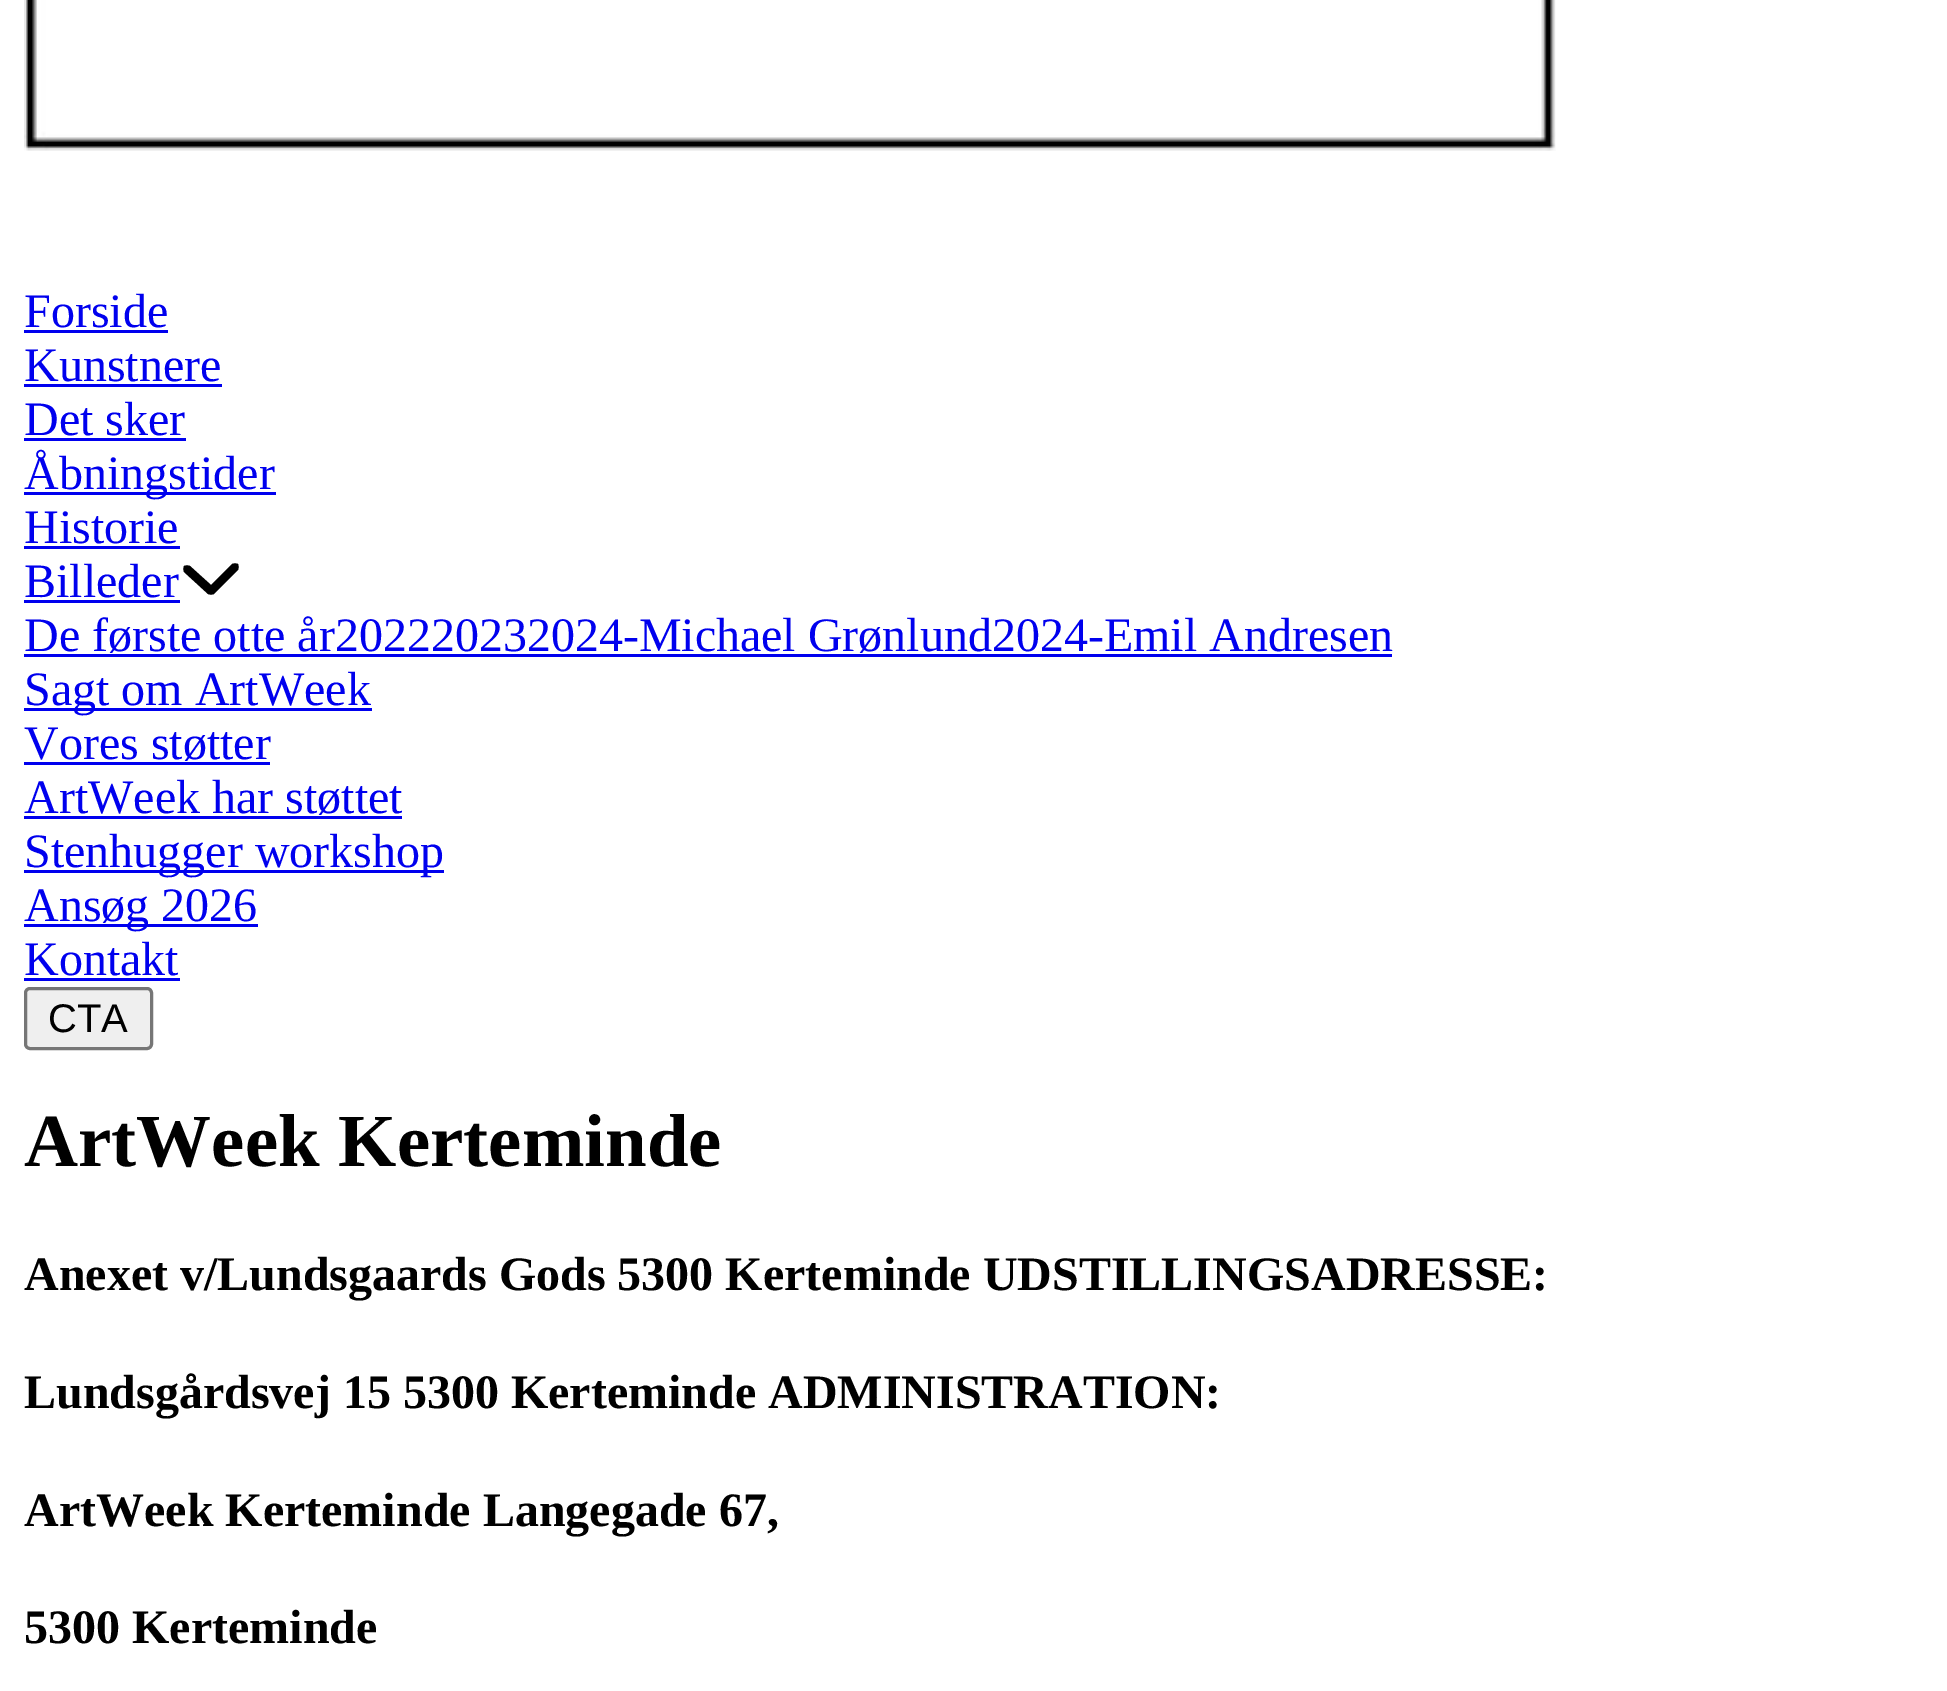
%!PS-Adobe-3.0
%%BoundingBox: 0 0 1947 1691
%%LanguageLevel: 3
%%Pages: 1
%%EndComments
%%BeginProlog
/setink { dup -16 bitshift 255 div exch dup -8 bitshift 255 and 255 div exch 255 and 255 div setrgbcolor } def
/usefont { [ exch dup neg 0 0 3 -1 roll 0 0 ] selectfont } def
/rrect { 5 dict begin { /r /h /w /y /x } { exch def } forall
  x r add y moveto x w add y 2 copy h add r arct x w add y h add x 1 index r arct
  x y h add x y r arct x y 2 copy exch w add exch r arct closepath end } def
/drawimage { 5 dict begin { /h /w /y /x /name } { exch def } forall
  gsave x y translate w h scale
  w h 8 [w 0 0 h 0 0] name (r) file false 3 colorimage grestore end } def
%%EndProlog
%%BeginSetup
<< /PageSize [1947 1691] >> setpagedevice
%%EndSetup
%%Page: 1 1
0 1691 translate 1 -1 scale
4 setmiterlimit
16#FFFFFF setink
0 0 1947 1691 rectfill
(img1.raw) 24 0 1532 151 drawimage
/LiberationSerif-Regular 48 usefont
16#0000EE setink
24 327 moveto (Forside) show
24 330 144 3 rectfill
24 381 moveto (Kunstnere) show
24 384 198 3 rectfill
24 435 moveto (Det sker) show
24 438 162 3 rectfill
24 492 252 3 rectfill
24 489 moveto (Åbningstider) show
24 543 moveto (Historie) show
24 546 156 3 rectfill
24 597 moveto (Billeder) show
24 600 156 3 rectfill
16#000000 setink
232 564 moveto 234 563 236 563 238 564 curveto 239 566 239 568 238 570 curveto 214 594 lineto 212 595 210 595 208 594 curveto 184 572 lineto 183 570 183 568 184 566 curveto 186 565 188 565 190 566 curveto 211 585 lineto closepath fill
16#0000EE setink
24 651 moveto (De første otte år202220232024-Michael Grønlund2024-Emil Andresen) show
24 654 1368 3 rectfill
24 708 348 3 rectfill
24 705 moveto (Sagt om ArtWeek) show
24 759 moveto (Vores støtter) show
24 762 246 3 rectfill
24 813 moveto (ArtWeek har støttet) show
24 816 378 3 rectfill
24 870 420 3 rectfill
24 867 moveto (Stenhugger workshop) show
24 924 234 3 rectfill
24 921 moveto (Ansøg 2026) show
24 975 moveto (Kontakt) show
24 978 156 3 rectfill
16#EFEFEF setink
25.5 988.5 126 60 4.5 rrect gsave fill grestore
16#767676 setink
3 setlinewidth
stroke
/LiberationSans-Regular 40 usefont
16#000000 setink
48 1032 moveto (CTA) show
/LiberationSerif-Bold 75 usefont
24 1166 moveto (ArtWeek Kerteminde) show
/LiberationSerif-Bold 48 usefont
[
    [(Anexet v/Lundsgaards Gods 5300 Kerteminde UDSTILLINGSADRESSE:) 24 1290]
    [(Lundsgårdsvej 15 5300 Kerteminde ADMINISTRATION:) 24 1408]
    [(ArtWeek Kerteminde Langegade 67,) 24 1526]
    [(5300 Kerteminde) 24 1643]
] { aload pop moveto show } forall
showpage
%%EOF
